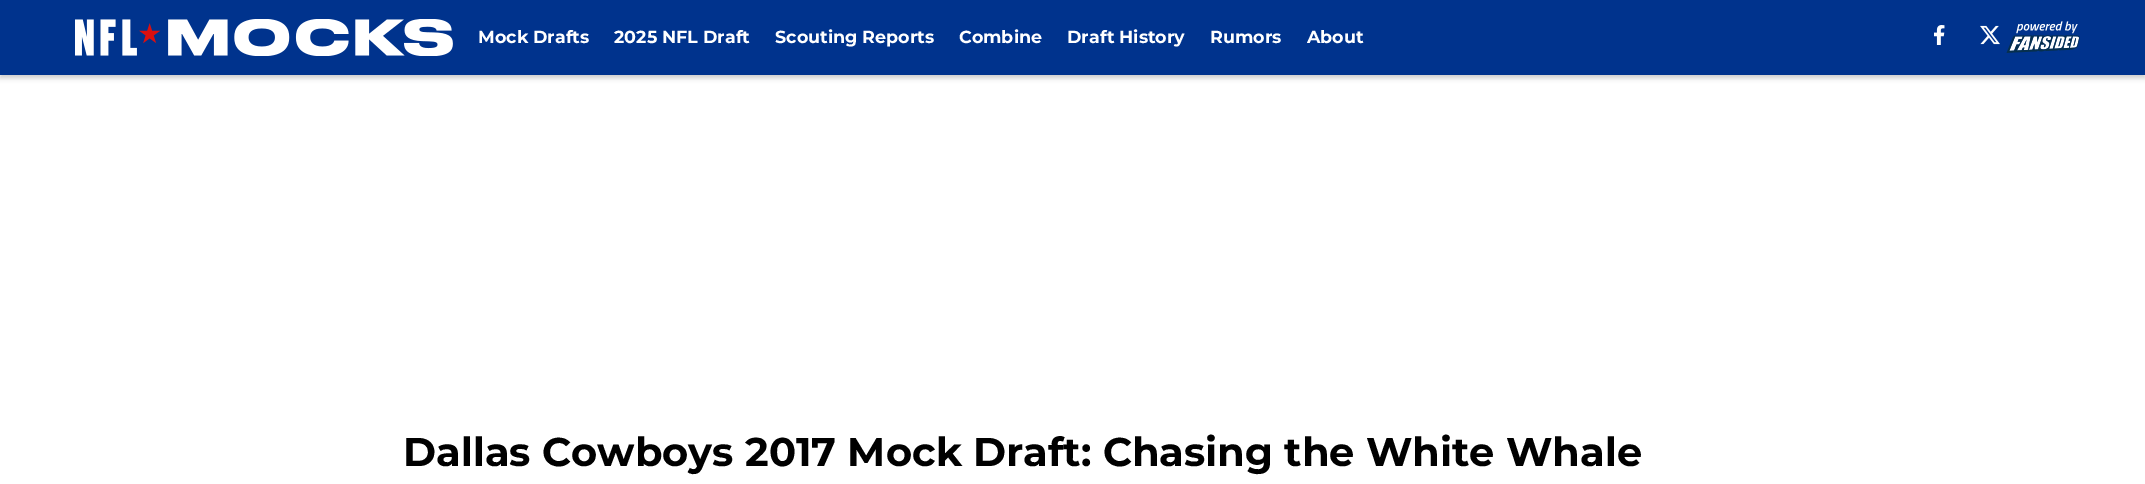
%!PS-Adobe-3.0
%%BoundingBox: 0 0 2145 484
%%LanguageLevel: 3
%%Pages: 1
%%EndComments
%%BeginProlog
/setink { dup -16 bitshift 255 div exch dup -8 bitshift 255 and 255 div exch 255 and 255 div setrgbcolor } def
/usefont { [ exch dup neg 0 0 3 -1 roll 0 0 ] selectfont } def
/setalpha { dup .setfillconstantalpha .setstrokeconstantalpha } def
/rrect { 5 dict begin { /r /h /w /y /x } { exch def } forall
  x r add y moveto x w add y 2 copy h add r arct x w add y h add x 1 index r arct
  x y h add x y r arct x y 2 copy exch w add exch r arct closepath end } def
/softshadow { 12 dict begin { /a /b /q /h /w /y /x } { exch def } forall gsave /was 0 def
  9 -2 -9 { dup b mul 4 div /e exch def 1 sub .425 mul 2.718 exch exp 1 add a .99 .min exch div /now exch def
    1 1 now sub 1 was sub div sub setalpha /was now def
    w h .min e 2 mul add 0 gt { x e sub y e sub w e 2 mul add h e 2 mul add
      q e add b .6 mul add w h .min 2 div e add .min 0 .max rrect fill } if } for grestore end } def
/drawimage { 5 dict begin { /h /w /y /x /name } { exch def } forall
  gsave x y translate w h scale
  w h 8 [w 0 0 h 0 0] name (r) file false 3 colorimage grestore end } def
%%EndProlog
%%BeginSetup
<< /PageSize [2145 484] /PageUsesTransparency true >> setpagedevice
%%EndSetup
%%Page: 1 1
0 .pushpdf14devicefilter
0 484 translate 1 -1 scale
4 setmiterlimit
16#FFFFFF setink
0 0 2145 484 rectfill
16#000000 setink
0 3 2145 75 0 2.5 0.2 softshadow
16#00338D setink
0 0 2145 75 rectfill
(img1.raw) 75 19 378 37 drawimage
/Montserrat-Thin 17.5 usefont
16#FFFFFF setink
[
    [(Mock Drafts) 478 43]
    [(2025 NFL Draft) 614 43]
    [(Scouting Reports) 775 43]
    [(Combine) 959 43]
    [(Draft History) 1067 43]
    [(Rumors) 1210 43]
    [(About) 1307 43]
] { aload pop moveto show } forall
(img2.raw) 1934 25 11 20 drawimage
(img3.raw) 1980 25 20 20 drawimage
(img4.raw) 2006 21 74 32 drawimage
/Montserrat-Thin 40 usefont
16#000000 setink
403 466 moveto (Dallas Cowboys 2017 Mock Draft: Chasing the White Whale) show
.poppdf14devicefilter showpage
%%EOF
